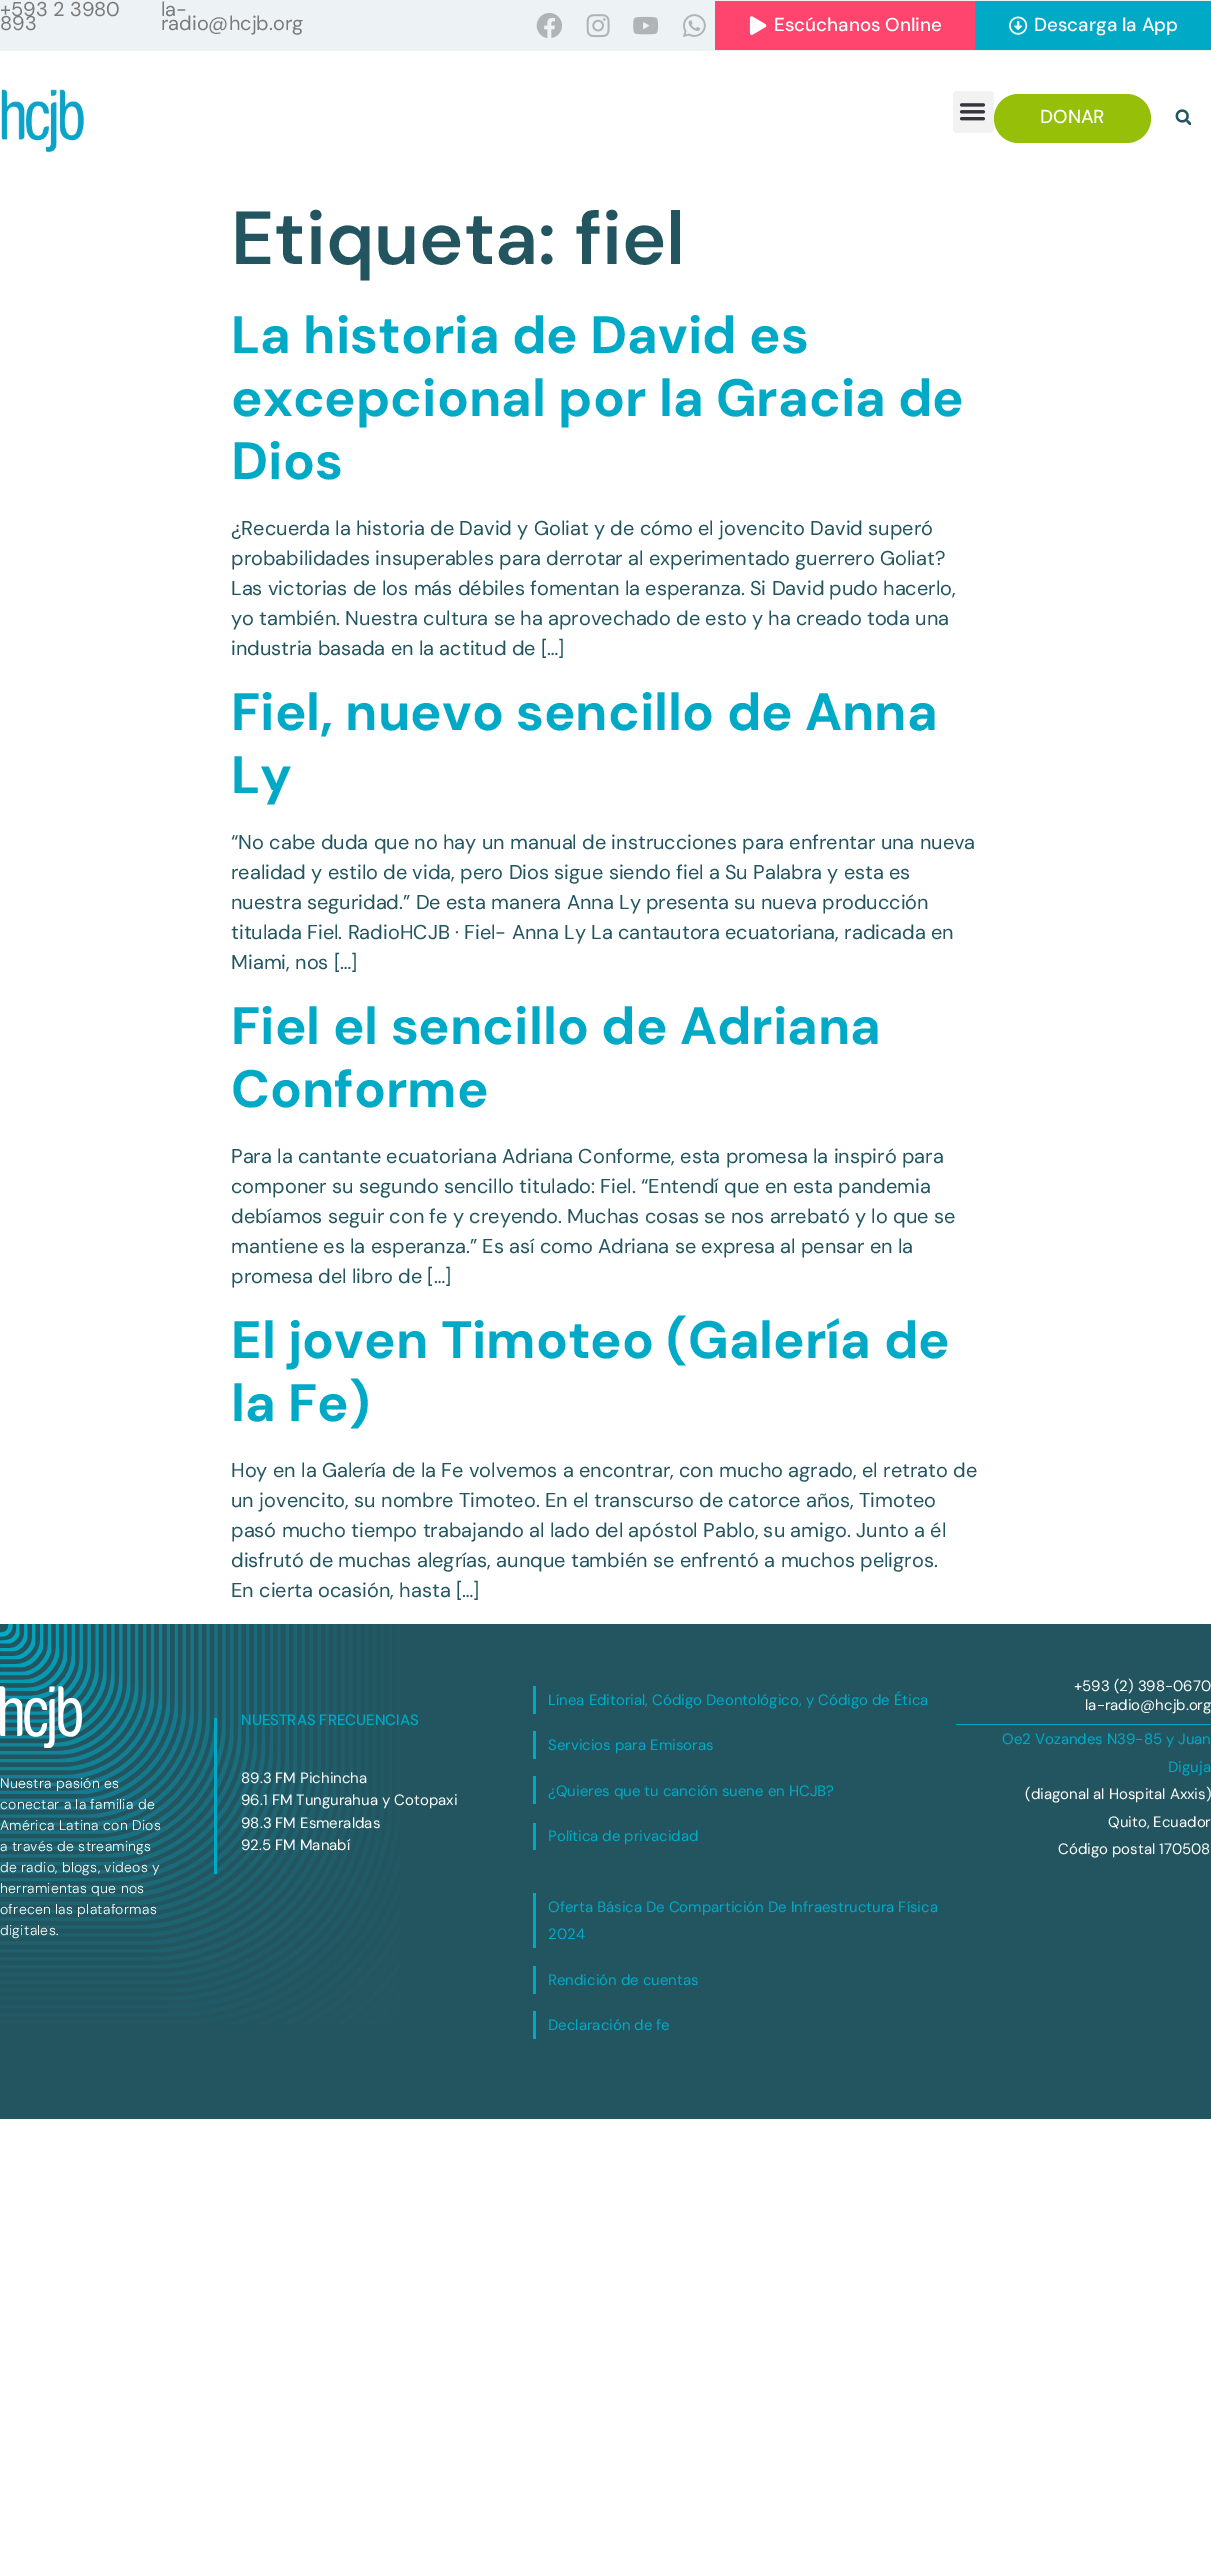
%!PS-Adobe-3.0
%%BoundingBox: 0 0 1211 2567
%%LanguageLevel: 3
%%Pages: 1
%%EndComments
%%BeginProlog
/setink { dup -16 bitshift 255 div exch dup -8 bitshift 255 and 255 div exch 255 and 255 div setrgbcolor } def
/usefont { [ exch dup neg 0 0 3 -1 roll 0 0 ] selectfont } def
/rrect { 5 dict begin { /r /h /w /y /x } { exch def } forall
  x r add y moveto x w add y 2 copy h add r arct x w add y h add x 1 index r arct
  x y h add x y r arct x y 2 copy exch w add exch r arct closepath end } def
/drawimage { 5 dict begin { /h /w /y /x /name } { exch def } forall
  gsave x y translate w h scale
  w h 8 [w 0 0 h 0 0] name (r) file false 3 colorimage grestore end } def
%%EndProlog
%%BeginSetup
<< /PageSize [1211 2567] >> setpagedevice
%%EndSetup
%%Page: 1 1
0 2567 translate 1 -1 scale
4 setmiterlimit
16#FFFFFF setink
0 0 1211 2567 rectfill
16#EDF3F4 setink
0 0 1211 51 rectfill
/DMSans-Regular 20 usefont
16#7A7A7A setink
[
    [(+593 2 3980) 0 16]
    [(893) 0 30]
    [(la-) 161 16]
    [(radio@hcjb.org) 161 30]
] { aload pop moveto show } forall
(img1.raw) 536 13 26 26 drawimage
(img2.raw) 586 14 24 24 drawimage
(img3.raw) 633 16 25 19 drawimage
(img4.raw) 683 14 23 23 drawimage
16#FF456D setink
715 1 260 49 rectfill
(img5.raw) 749 16 18 19 drawimage
/DMSans-Medium 18.75 usefont
16#FFFFFF setink
774 31 moveto (Escúchanos Online) show
16#00AAC6 setink
975 1 236 49 rectfill
(img6.raw) 1009 16 19 19 drawimage
16#FFFFFF setink
1034 31 moveto (Descarga la App) show
(img7.raw) 1 89 83 63 drawimage
16#F2F2F2 setink
953 91 41 42 4 rrect fill
(img8.raw) 959 103 27 18 drawimage
16#96BF09 setink
994 94 157 49 24.5 rrect fill
16#FFFFFF setink
1040 123 moveto (DONAR) show
(img9.raw) 1175 109 16 16 drawimage
/DMSans-SemiBold 75 usefont
16#225560 setink
231 264 moveto (Etiqueta: fiel) show
/DMSans-Bold 52.5 usefont
16#00AAC6 setink
[
    [(La historia de David es) 231 353]
    [(excepcional por la Gracia de) 231 416]
    [(Dios) 231 479]
] { aload pop moveto show } forall
/DMSans-Regular 20 usefont
16#225560 setink
[
    [(¿Recuerda la historia de David y Goliat y de cómo el jovencito David superó) 231 535]
    [(probabilidades insuperables para derrotar al experimentado guerrero Goliat?) 231 565]
    [(Las victorias de los más débiles fomentan la esperanza. Si David pudo hacerlo,) 231 595]
    [(yo también. Nuestra cultura se ha aprovechado de esto y ha creado toda una) 231 625]
    [(industria basada en la actitud de […]) 231 655]
] { aload pop moveto show } forall
/DMSans-Bold 52.5 usefont
16#00AAC6 setink
231 730 moveto (Fiel, nuevo sencillo de Anna) show
231 793 moveto (Ly) show
/DMSans-Regular 20 usefont
16#225560 setink
[
    [(“No cabe duda que no hay un manual de instrucciones para enfrentar una nueva) 231 849]
    [(realidad y estilo de vida, pero Dios sigue siendo fiel a Su Palabra y esta es) 231 879]
    [(nuestra seguridad.” De esta manera Anna Ly presenta su nueva producción) 231 909]
    [(titulada Fiel. RadioHCJB · Fiel- Anna Ly La cantautora ecuatoriana, radicada en) 231 939]
    [(Miami, nos […]) 231 969]
] { aload pop moveto show } forall
/DMSans-Bold 52.5 usefont
16#00AAC6 setink
231 1044 moveto (Fiel el sencillo de Adriana) show
231 1107 moveto (Conforme) show
/DMSans-Regular 20 usefont
16#225560 setink
[
    [(Para la cantante ecuatoriana Adriana Conforme, esta promesa la inspiró para) 231 1163]
    [(componer su segundo sencillo titulado: Fiel. “Entendí que en esta pandemia) 231 1193]
    [(debíamos seguir con fe y creyendo. Muchas cosas se nos arrebató y lo que se) 231 1223]
    [(mantiene es la esperanza.” Es así como Adriana se expresa al pensar en la) 231 1253]
    [(promesa del libro de […]) 231 1283]
] { aload pop moveto show } forall
/DMSans-Bold 52.5 usefont
16#00AAC6 setink
231 1358 moveto (El joven Timoteo \(Galería de) show
231 1421 moveto (la Fe\)) show
/DMSans-Regular 20 usefont
16#225560 setink
[
    [(Hoy en la Galería de la Fe volvemos a encontrar, con mucho agrado, el retrato de) 231 1477]
    [(un jovencito, su nombre Timoteo. En el transcurso de catorce años, Timoteo) 231 1507]
    [(pasó mucho tiempo trabajando al lado del apóstol Pablo, su amigo. Junto a él) 231 1537]
    [(disfrutó de muchas alegrías, aunque también se enfrentó a muchos peligros.) 231 1567]
    [(En cierta ocasión, hasta […]) 231 1597]
] { aload pop moveto show } forall
0 1624 1211 495 rectfill
(img10.raw) 0 1624 400 400 drawimage
(img11.raw) 0 1686 82 62 drawimage
/DMSans-Light 14 usefont
16#FFFFFF setink
0 1788 moveto 0.25 0 (Nuestra pasión es) ashow
0 1809 moveto 0.25 0 (conectar a la familia de) ashow
0 1830 moveto 0.25 0 (América Latina con Dios) ashow
0 1851 moveto 0.25 0 (a través de streamings) ashow
0 1872 moveto 0.25 0 (de radio, blogs, videos y) ashow
0 1893 moveto 0.25 0 (herramientas que nos) ashow
0 1914 moveto 0.25 0 (ofrecen las plataformas) ashow
0 1935 moveto 0.25 0 (digitales.) ashow
16#00AAC6 setink
214 1718 3 156 rectfill
/DMSans-Medium 15 usefont
241 1725 moveto (NUESTRAS FRECUENCIAS) show
/DMSans-Regular 15 usefont
16#FFFFFF setink
[
    [(89.3 FM Pichincha) 241 1783]
    [(96.1 FM Tungurahua y Cotopaxi) 241 1805]
    [(98.3 FM Esmeraldas) 241 1828]
    [(92.5 FM Manabí) 241 1850]
] { aload pop moveto show } forall
16#00AAC6 setink
533 1686 3 28 rectfill
548 1705 moveto (Línea Editorial, Código Deontológico, y Código de Ética) show
533 1731 3 28 rectfill
548 1750 moveto (Servicios para Emisoras) show
533 1776 3 28 rectfill
548 1796 moveto (¿Quieres que tu canción suene en HCJB?) show
533 1823 3 27 rectfill
548 1841 moveto (Política de privacidad) show
533 1893 3 55 rectfill
548 1912 moveto (Oferta Básica De Compartición De Infraestructura Física) show
548 1939 moveto (2024) show
533 1966 3 28 rectfill
548 1985 moveto (Rendición de cuentas) show
533 2011 3 28 rectfill
548 2030 moveto (Declaración de fe) show
16#FFFFFF setink
1074 1691 moveto (+593 \(2\) 398-0670) show
1085 1710 moveto (la-radio@hcjb.org) show
16#00AAC6 setink
956 1724 255 1 rectfill
1002 1744 moveto (Oe2 Vozandes N39-85 y Juan) show
1168 1772 moveto (Diguja) show
16#FFFFFF setink
[
    [(\(diagonal al Hospital Axxis\)) 1025 1799]
    [(Quito, Ecuador) 1108 1827]
    [(Código postal 170508) 1058 1854]
] { aload pop moveto show } forall
showpage
%%EOF
